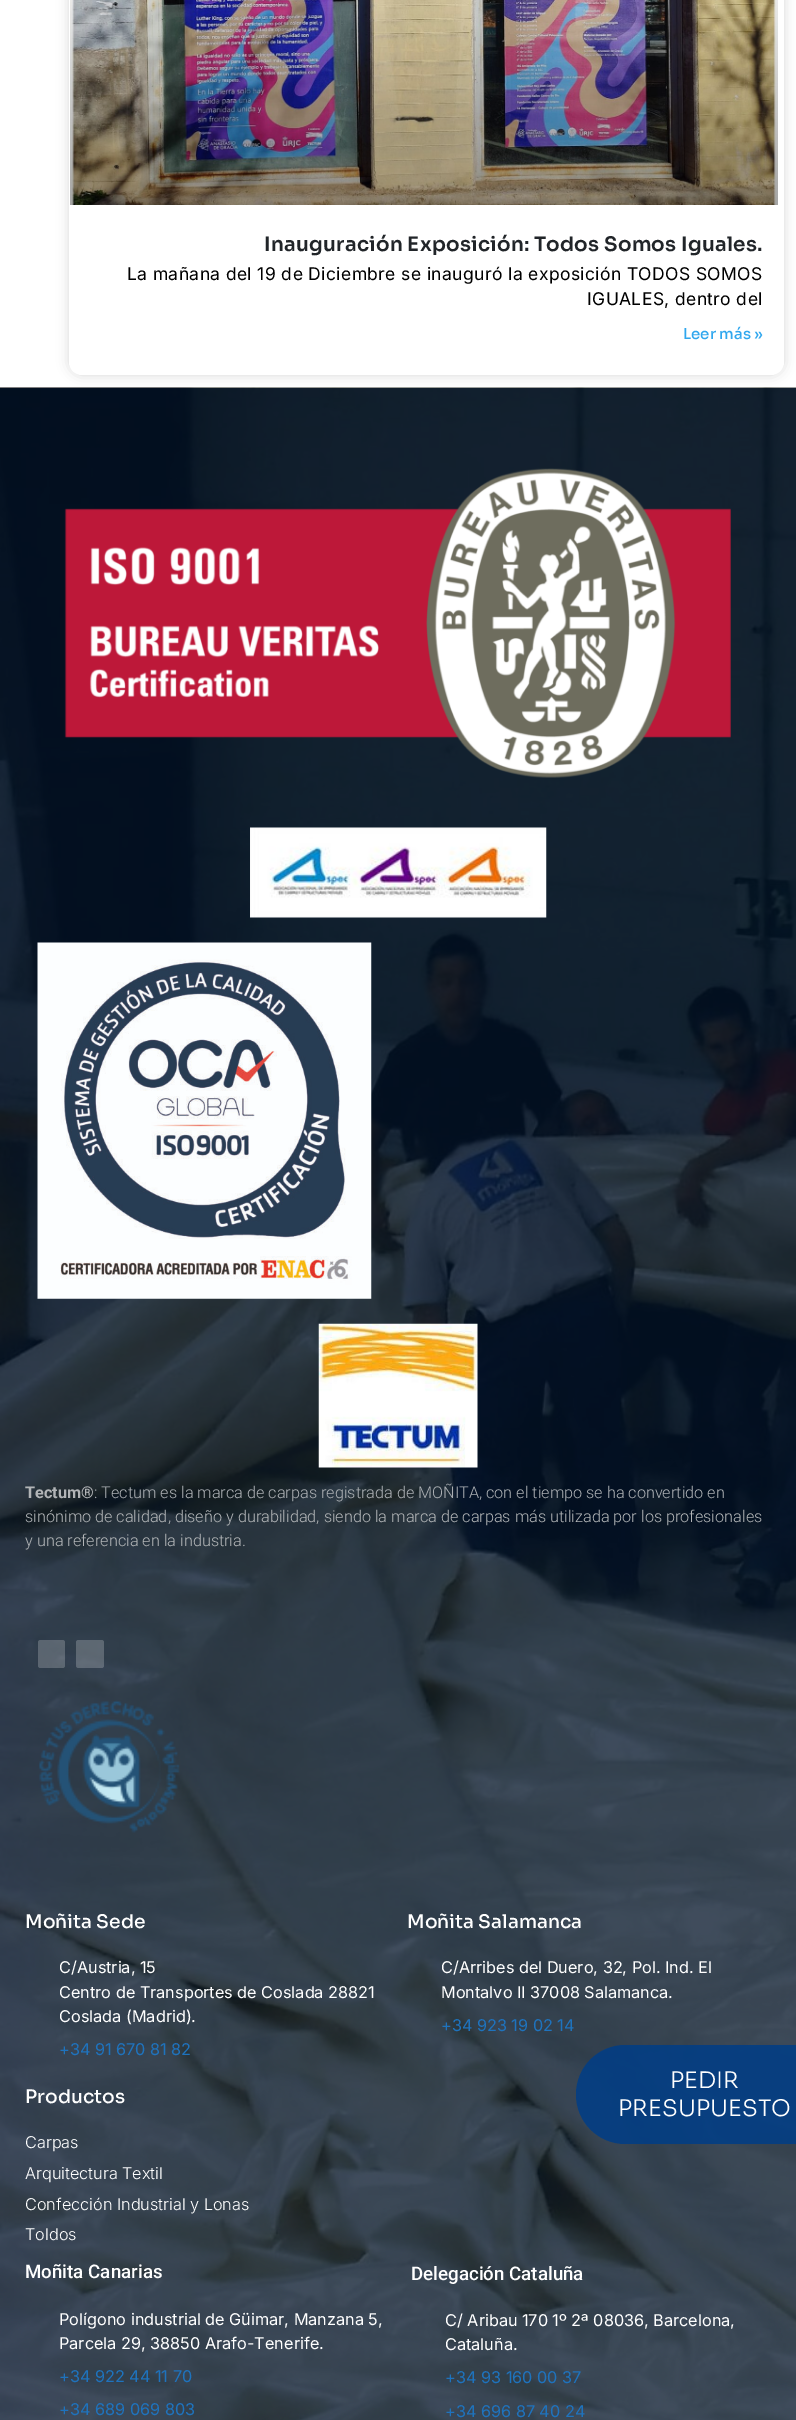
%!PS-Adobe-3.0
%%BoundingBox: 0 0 796 2420
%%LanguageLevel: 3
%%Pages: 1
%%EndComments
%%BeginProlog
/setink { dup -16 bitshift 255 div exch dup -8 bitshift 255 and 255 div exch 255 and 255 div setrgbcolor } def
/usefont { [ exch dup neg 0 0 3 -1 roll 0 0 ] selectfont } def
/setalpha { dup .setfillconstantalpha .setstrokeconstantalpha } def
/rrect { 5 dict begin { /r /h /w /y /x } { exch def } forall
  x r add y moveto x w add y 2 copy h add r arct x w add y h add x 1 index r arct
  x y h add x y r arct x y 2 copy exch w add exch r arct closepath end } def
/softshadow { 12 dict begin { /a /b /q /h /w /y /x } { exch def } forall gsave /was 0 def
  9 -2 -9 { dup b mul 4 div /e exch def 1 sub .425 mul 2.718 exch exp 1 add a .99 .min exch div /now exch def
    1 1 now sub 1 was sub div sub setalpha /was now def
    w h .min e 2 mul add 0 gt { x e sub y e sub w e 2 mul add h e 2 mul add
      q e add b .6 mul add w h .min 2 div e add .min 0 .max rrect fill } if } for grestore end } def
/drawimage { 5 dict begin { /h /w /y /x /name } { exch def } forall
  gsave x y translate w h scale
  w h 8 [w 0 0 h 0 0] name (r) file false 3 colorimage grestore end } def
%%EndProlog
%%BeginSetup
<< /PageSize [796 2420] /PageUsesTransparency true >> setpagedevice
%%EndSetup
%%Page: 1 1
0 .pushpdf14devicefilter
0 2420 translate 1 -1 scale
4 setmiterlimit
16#FFFFFF setink
0 0 796 2420 rectfill
16#000000 setink
69 -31 715 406 13 6 0.15 softshadow
16#FFFFFF setink
69 -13 715 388 13 rrect fill
(img1.raw) 70 0 708 205 drawimage
/Sora-SemiBold 20 usefont
16#212529 setink
264 251 moveto 0.25 0 (Inauguración Exposición: Todos Somos Iguales.) ashow
/Inter-Regular 17.5 usefont
16#000000 setink
127 280 moveto 0.38 0 (La mañana del 19 de Diciembre se inauguró la exposición TODOS SOMOS) ashow
587 305 moveto 0.38 0 (IGUALES, dentro del) ashow
/Sora-Medium 15 usefont
16#30A7EE setink
683 339 moveto (Leer más ») show
(img2.raw) 0 387 796 2033 drawimage
(img3.raw) 64 468 667 310 drawimage
(img4.raw) 250 827 297 91 drawimage
(img5.raw) 37 942 335 357 drawimage
(img6.raw) 318 1323 160 145 drawimage
/Roboto-Bold 16.25 usefont
16#B2B5B7 setink
25 1498 moveto (Tectum®) show
/Roboto-Light 16.25 usefont
16#ACB0B4 setink
94 1498 moveto (: Tectum es la marca de carpas registrada de MOÑITA, con el tiempo se ha convertido en) show
16#B2B5B7 setink
25 1522 moveto (sinónimo de calidad, diseño y durabilidad, siendo la marca de carpas más utilizada por los profesionales) show
25 1546 moveto (y una referencia en la industria.) show
0.21 setalpha
16#FFFFFF setink
38 1640 27 28 2.5 rrect fill
76 1640 28 28 2.5 rrect fill
1 setalpha
(img7.raw) 39 1700 141 133 drawimage
/Sora-Medium 18.75 usefont
25 1928 moveto (Moñita Sede) show
/Inter-Regular 16.25 usefont
[
    [(C/Austria, 15) 59 1973]
    [(Centro de Transportes de Coslada 28821) 59 1998]
    [(Coslada \(Madrid\).) 59 2022]
] { aload pop moveto show } forall
16#1E73BE setink
59 2055 moveto (+34 91 670 81 82) show
/Sora-Medium 18.75 usefont
16#FFFFFF setink
25 2103 moveto (Productos) show
/Inter-Light 16.25 usefont
[
    [(Carpas) 25 2148]
    [(Arquitectura Textil) 25 2179]
    [(Confección Industrial y Lonas) 25 2210]
    [(Toldos) 25 2240]
] { aload pop moveto show } forall
/Sora-Medium 18.75 usefont
407 1928 moveto (Moñita Salamanca) show
/Inter-Regular 16.25 usefont
441 1973 moveto (C/Arribes del Duero, 32, Pol. Ind. El) show
441 1998 moveto (Montalvo II 37008 Salamanca.) show
16#1E73BE setink
441 2031 moveto (+34 923 19 02 14) show
/Roboto-Medium 18.75 usefont
16#FFFFFF setink
25 2278 moveto (Moñita Canarias) show
/Inter-Regular 16.25 usefont
59 2325 moveto (Polígono industrial de Güimar, Manzana 5,) show
59 2349 moveto (Parcela 29, 38850 Arafo-Tenerife.) show
16#1E73BE setink
59 2382 moveto (+34 922 44 11 70) show
59 2415 moveto (+34 689 069 803) show
/Roboto-Medium 18.75 usefont
16#FFFFFF setink
411 2280 moveto (Delegación Cataluña) show
/Inter-Regular 16.25 usefont
445 2326 moveto (C/ Aribau 170 1º 2ª 08036, Barcelona,) show
445 2350 moveto (Cataluña.) show
16#1E73BE setink
445 2383 moveto (+34 93 160 00 37) show
445 2417 moveto (+34 696 87 40 24) show
0.86 setalpha
16#003D86 setink
625.5 2045 moveto 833 2045 lineto 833 2144 lineto 625.5 2144 lineto 598 2144 576 2122 576 2094.5 curveto 576 2067 598 2045 625.5 2045 curveto closepath fill
/Sora-Light 22.75 usefont
1 setalpha
16#FFFFFF setink
670 2088 moveto (PEDIR) show
618 2116 moveto (PRESUPUESTO) show
.poppdf14devicefilter showpage
%%EOF
